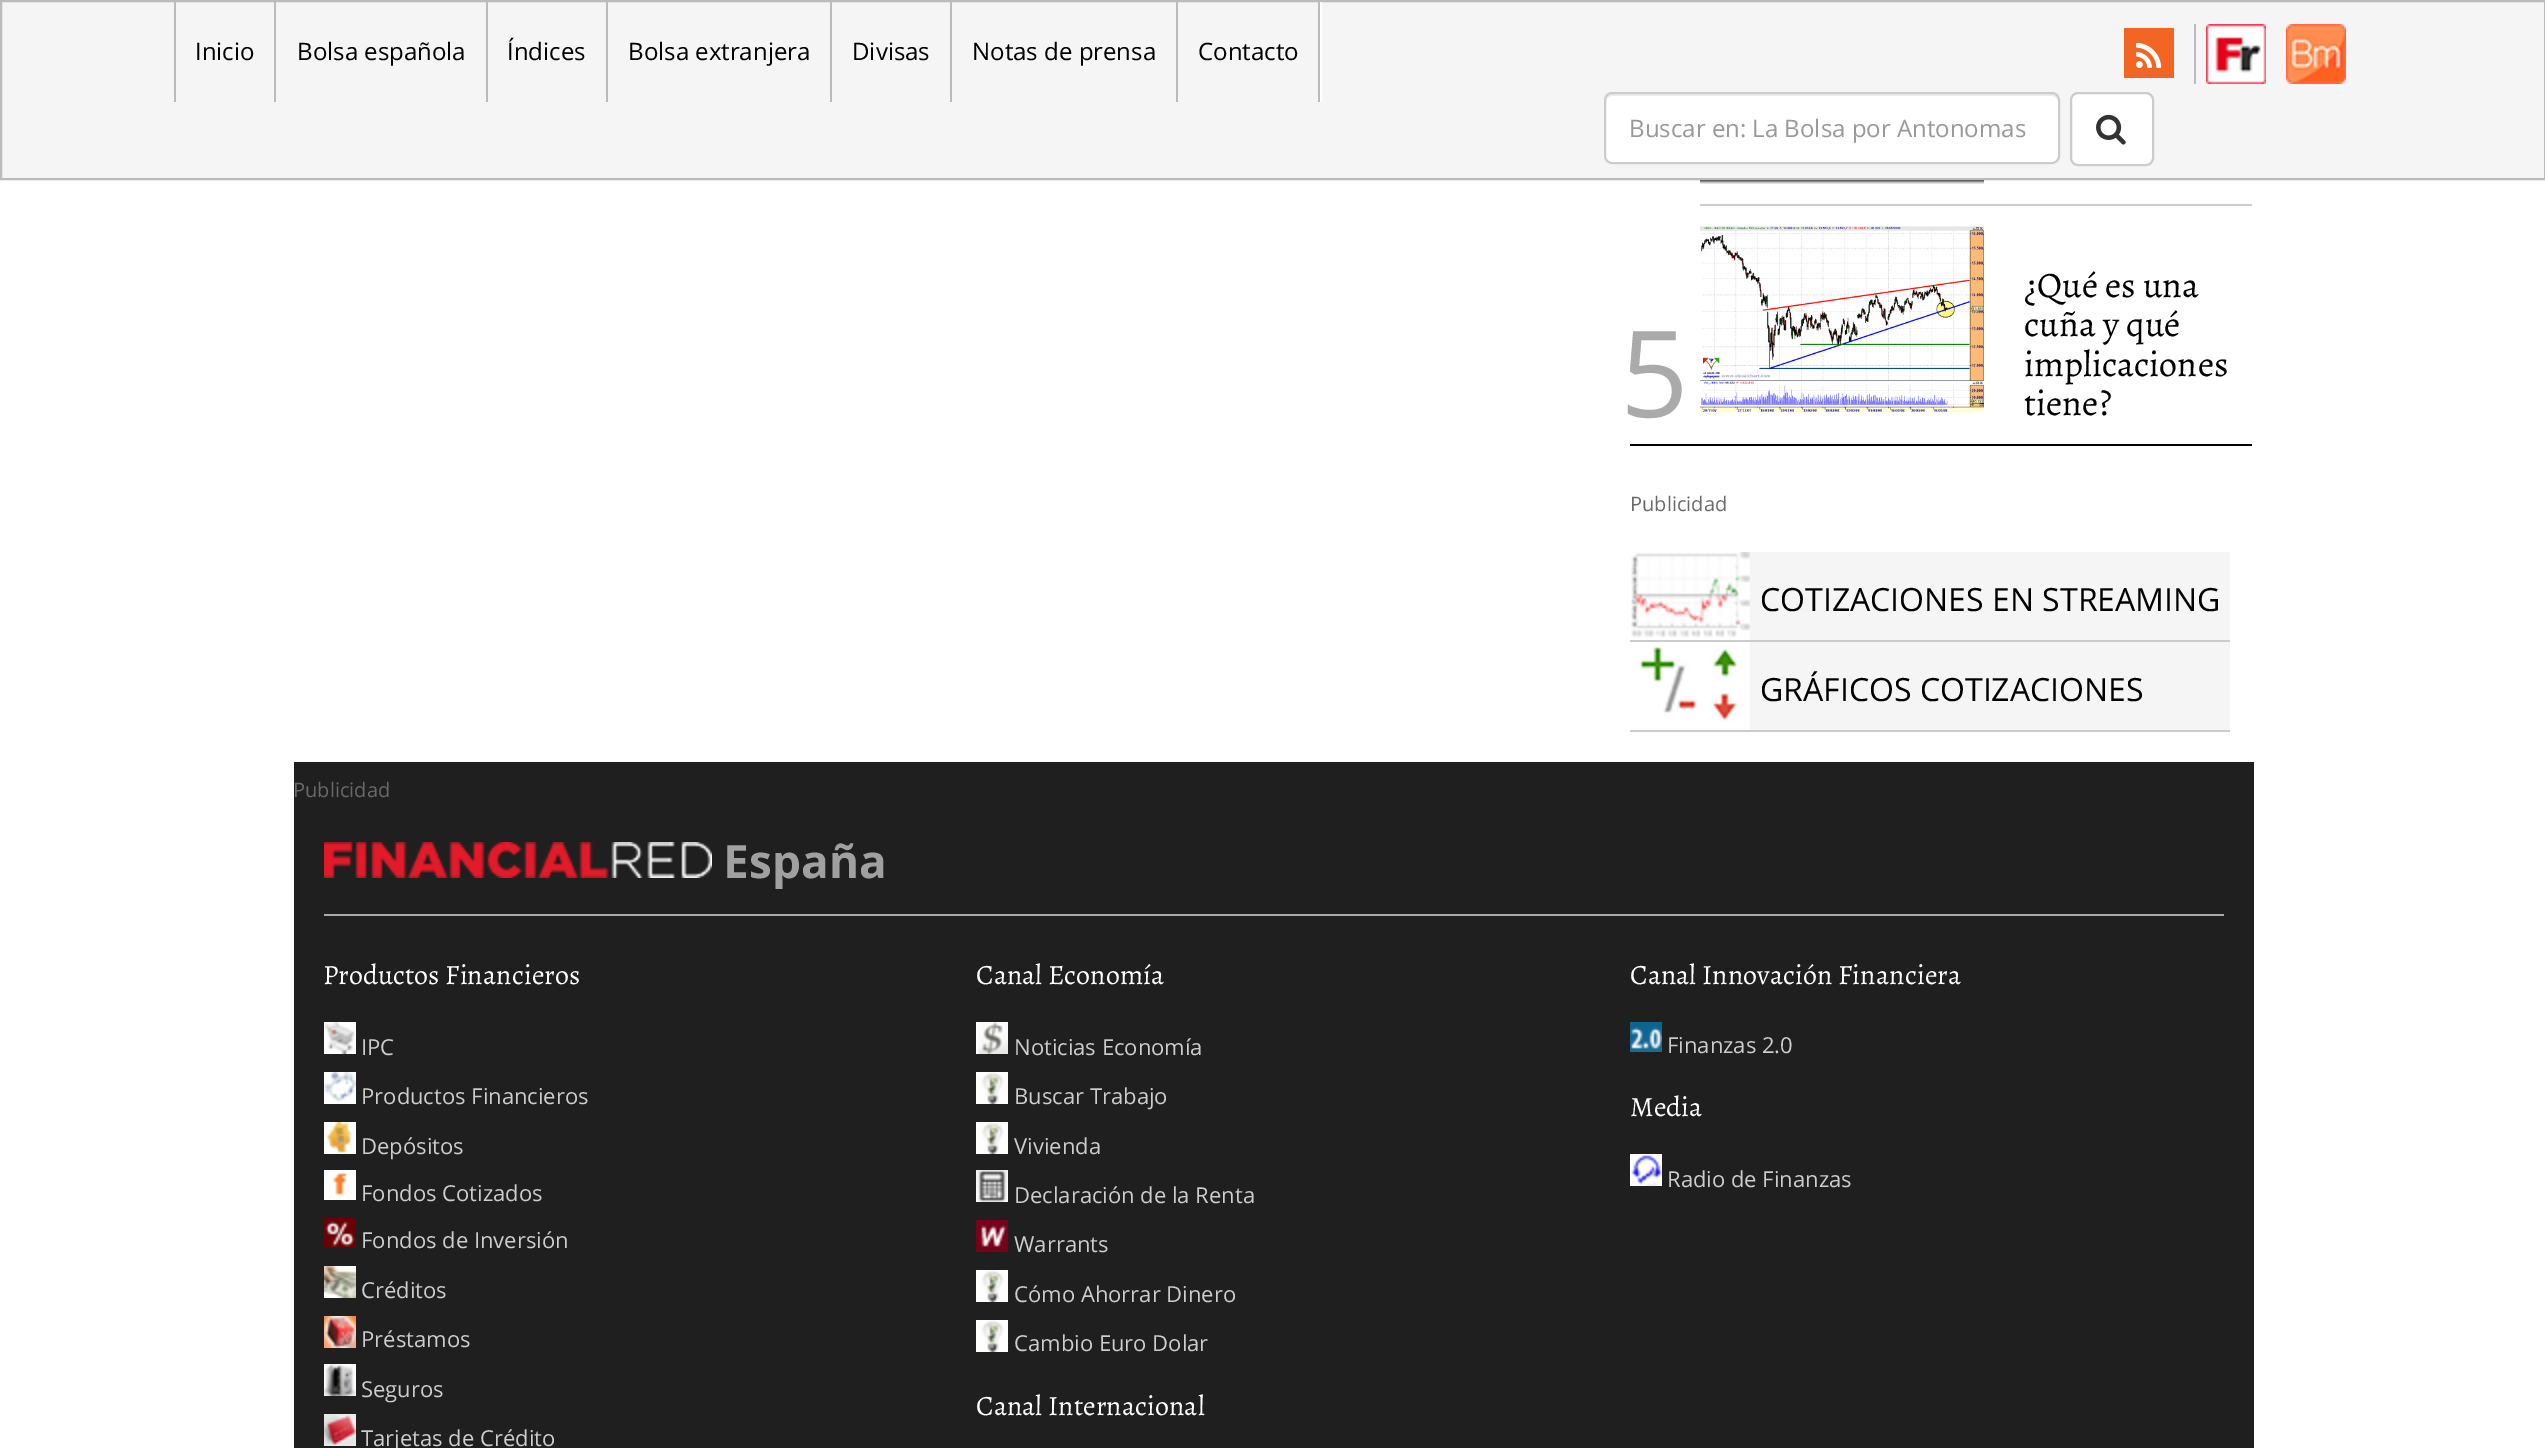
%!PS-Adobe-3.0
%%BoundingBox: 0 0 2545 1448
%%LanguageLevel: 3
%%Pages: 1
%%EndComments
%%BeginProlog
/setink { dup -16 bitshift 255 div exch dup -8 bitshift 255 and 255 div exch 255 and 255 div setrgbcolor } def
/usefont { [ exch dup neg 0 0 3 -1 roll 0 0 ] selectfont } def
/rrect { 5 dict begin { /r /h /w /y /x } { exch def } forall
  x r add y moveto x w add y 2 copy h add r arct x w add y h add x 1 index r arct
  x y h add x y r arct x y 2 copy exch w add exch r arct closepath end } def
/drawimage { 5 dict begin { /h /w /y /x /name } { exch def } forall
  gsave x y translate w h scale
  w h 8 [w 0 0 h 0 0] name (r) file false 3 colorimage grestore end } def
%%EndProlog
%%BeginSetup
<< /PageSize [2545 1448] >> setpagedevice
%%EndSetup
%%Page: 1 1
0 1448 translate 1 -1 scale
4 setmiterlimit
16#FFFFFF setink
0 0 2545 1448 rectfill
16#F5F5F5 setink
1 1 moveto 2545 1 lineto 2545 179 lineto 1 179 lineto closepath gsave fill grestore
16#BBBBBB setink
2 setlinewidth
stroke
[
    [1320 2 2 100 16#FFFFFF]
    [174 2 2 100 16#BBBBBB]
    [274 2 2 100 16#BBBBBB]
] { aload pop setink rectfill } forall
/OpenSans-Regular 24 usefont
16#000000 setink
195 60 moveto (Inicio) show
16#BBBBBB setink
486 2 2 100 rectfill
16#000000 setink
297 60 moveto (Bolsa española) show
16#BBBBBB setink
606 2 2 100 rectfill
16#000000 setink
507 60 moveto (Índices) show
16#BBBBBB setink
830 2 2 100 rectfill
16#000000 setink
628 60 moveto (Bolsa extranjera) show
16#BBBBBB setink
950 2 2 100 rectfill
16#000000 setink
852 60 moveto (Divisas) show
16#BBBBBB setink
1176 2 2 100 rectfill
16#000000 setink
972 60 moveto (Notas de prensa) show
16#BBBBBB setink
1318 2 2 100 rectfill
16#000000 setink
1198 60 moveto (Contacto) show
16#F26522 setink
2124 28 50 50 rectfill
(img1.raw) 2136 42 26 26 drawimage
16#BBBBBB setink
2194 24 2 60 rectfill
(img2.raw) 2206 24 60 60 drawimage
(img3.raw) 2286 24 60 60 drawimage
16#FFFFFF setink
1604 92 456 72 8 rrect fill
16#ECECEC setink
1612 96 moveto 2052 96 lineto 2055 96 2058 99 2058 102 curveto 2058 100 lineto 2058 97 2055 94 2052 94 curveto 1612 94 lineto 1609 94 1606 97 1606 100 curveto 1606 102 lineto 1606 99 1609 96 1612 96 curveto closepath fill
16#CCCCCC setink
1605 93 454 70 7 rrect stroke
16#999999 setink
1629 137 moveto (Buscar en: La Bolsa por Antonomas) show
16#FFFFFF setink
2071 93 82 72 7 rrect gsave fill grestore
16#CCCCCC setink
stroke
(img4.raw) 2096 114 30 31 drawimage
16#000000 setink
1630 444 622 2 rectfill
16#CCCCCC setink
1700 204 552 2 rectfill
(img5.raw) 1700 180 284 4 drawimage
/OpenSans-Regular 120 usefont
16#AAAAAA setink
1620 417 moveto (5) show
(img6.raw) 1700 226 284 186 drawimage
/Alegreya-Regular 36 usefont
16#000000 setink
[
    [(¿Qué es una) 2024 297]
    [(cuña y qué) 2024 336]
    [(implicaciones) 2024 376]
    [(tiene?) 2024 415]
] { aload pop moveto show } forall
/OpenSans-Regular 20 usefont
16#696969 setink
1630 511 moveto (Publicidad) show
16#F5F5F5 setink
1750 552 480 88 rectfill
16#CCCCCC setink
1630 640 600 2 rectfill
(img7.raw) 1630 552 120 88 drawimage
/OpenSans-Regular 32 usefont
16#000000 setink
1760 611 moveto (COTIZACIONES EN STREAMING) show
16#F5F5F5 setink
1750 642 480 88 rectfill
16#CCCCCC setink
1630 730 600 2 rectfill
(img8.raw) 1630 642 120 88 drawimage
16#000000 setink
1760 701 moveto (GRÁFICOS COTIZACIONES) show
16#1F1F1F setink
294 762 1960 686 rectfill
/OpenSans-Regular 20 usefont
16#696969 setink
293 797 moveto (Publicidad) show
16#A9A9A9 setink
324 914 1900 2 rectfill
(img9.raw) 324 842 388 36 drawimage
/OpenSans-Bold 46 usefont
16#A0A0A0 setink
723 878 moveto (España) show
/Alegreya-Regular 28 usefont
16#FFFFFF setink
323 984 moveto (Productos Financieros) show
(img10.raw) 324 1022 32 32 drawimage
/OpenSans-Regular 22 usefont
16#CDCDCD setink
361 1055 moveto (IPC) show
(img11.raw) 324 1072 32 32 drawimage
361 1104 moveto (Productos Financieros) show
(img12.raw) 324 1122 32 32 drawimage
361 1154 moveto (Depósitos) show
(img13.raw) 324 1170 32 30 drawimage
361 1201 moveto (Fondos Cotizados) show
(img14.raw) 324 1218 32 30 drawimage
361 1248 moveto (Fondos de Inversión) show
(img15.raw) 324 1266 32 32 drawimage
361 1298 moveto (Créditos) show
(img16.raw) 324 1316 32 32 drawimage
361 1347 moveto (Préstamos) show
(img17.raw) 324 1364 32 32 drawimage
361 1397 moveto (Seguros) show
(img18.raw) 324 1414 32 32 drawimage
361 1446 moveto (Tarjetas de Crédito) show
/Alegreya-Regular 28 usefont
16#FFFFFF setink
976 984 moveto (Canal Economía) show
(img19.raw) 976 1022 32 32 drawimage
/OpenSans-Regular 22 usefont
16#CDCDCD setink
1014 1055 moveto (Noticias Economía) show
(img20.raw) 976 1072 32 32 drawimage
1014 1104 moveto (Buscar Trabajo) show
(img20.raw) 976 1122 32 32 drawimage
1014 1154 moveto (Vivienda) show
(img21.raw) 976 1170 32 32 drawimage
1014 1203 moveto (Declaración de la Renta) show
(img22.raw) 976 1220 32 32 drawimage
1014 1252 moveto (Warrants) show
(img20.raw) 976 1270 32 32 drawimage
1014 1302 moveto (Cómo Ahorrar Dinero) show
(img20.raw) 976 1320 32 32 drawimage
1014 1351 moveto (Cambio Euro Dolar) show
/Alegreya-Regular 28 usefont
16#FFFFFF setink
976 1415 moveto (Canal Internacional) show
1630 984 moveto (Canal Innovación Financiera) show
(img23.raw) 1630 1022 32 30 drawimage
/OpenSans-Regular 22 usefont
16#CDCDCD setink
1667 1053 moveto (Finanzas 2.0) show
/Alegreya-Regular 28 usefont
16#FFFFFF setink
1630 1116 moveto (Media) show
(img24.raw) 1630 1154 32 32 drawimage
/OpenSans-Regular 22 usefont
16#CDCDCD setink
1667 1187 moveto (Radio de Finanzas) show
showpage
%%EOF
